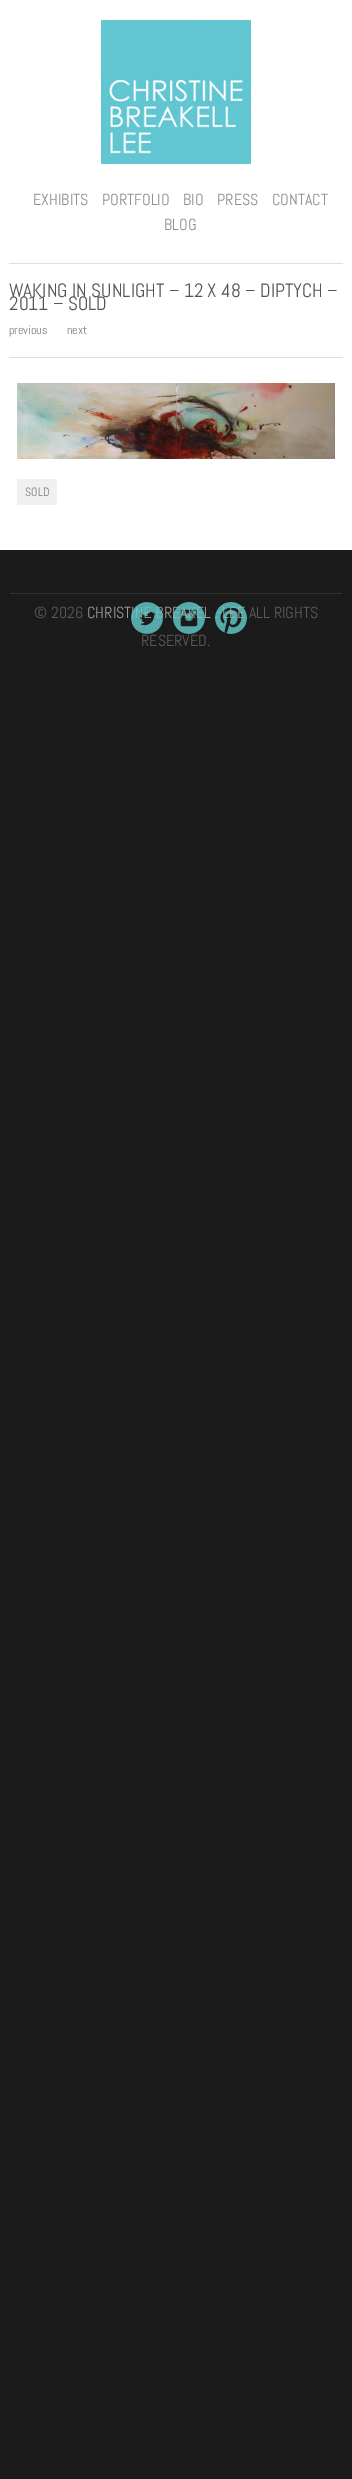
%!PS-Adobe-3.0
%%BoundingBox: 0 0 352 2479
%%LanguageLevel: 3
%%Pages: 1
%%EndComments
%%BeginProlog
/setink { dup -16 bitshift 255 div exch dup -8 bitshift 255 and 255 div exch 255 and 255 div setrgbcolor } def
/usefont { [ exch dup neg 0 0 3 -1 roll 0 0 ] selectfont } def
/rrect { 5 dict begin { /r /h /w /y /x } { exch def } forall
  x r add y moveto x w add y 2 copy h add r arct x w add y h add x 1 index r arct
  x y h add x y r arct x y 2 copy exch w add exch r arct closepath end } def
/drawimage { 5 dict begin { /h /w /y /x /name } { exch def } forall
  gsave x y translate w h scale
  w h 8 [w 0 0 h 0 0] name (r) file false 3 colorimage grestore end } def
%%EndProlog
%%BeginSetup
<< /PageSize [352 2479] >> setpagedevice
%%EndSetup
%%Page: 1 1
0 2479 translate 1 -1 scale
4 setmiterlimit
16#1B1B1B setink
0 0 352 2479 rectfill
16#FFFFFF setink
0 0 352 550 rectfill
(img1.raw) 101 20 150 144 drawimage
/Abel-Regular 16 usefont
16#8F8F8F setink
[
    [(EXHIBITS) 33 205]
    [(PORTFOLIO) 102 205]
    [(BIO) 183 205]
    [(PRESS) 217 205]
    [(CONTACT) 272 205]
    [(BLOG) 164 230]
] { aload pop moveto show } forall
16#DFDFDE setink
9 263 334 1 rectfill
9 357 334 1 rectfill
/Abel-Regular 19.25 usefont
16#555555 setink
9 297 moveto (WAKING IN SUNLIGHT – 12 X 48 – DIPTYCH –) show
9 310 moveto (2011 – SOLD) show
/Abel-Regular 12 usefont
16#7D7D7B setink
9 334 moveto (previous) show
67 334 moveto (next) show
(img2.raw) 17 383 318 76 drawimage
16#F0F0F0 setink
17 479 40 26 2 rrect fill
16#7D7D7B setink
25 496 moveto (SOLD) show
(img3.raw) 131 602 32 32 drawimage
(img4.raw) 173 602 32 32 drawimage
(img5.raw) 215 602 32 32 drawimage
16#313131 setink
10 593 332 1 rectfill
/Abel-Regular 16 usefont
16#5B5B5A setink
34 618 moveto (© 2026) show
16#9A9A99 setink
[
    [(CHRIST) 87 618]
    [(R) 164 618]
    [(L) 204 618]
] { aload pop moveto show } forall
16#5B5B5A setink
249 618 moveto (ALL RIGHTS) show
141 646 moveto (RESERVED.) show
showpage
%%EOF
